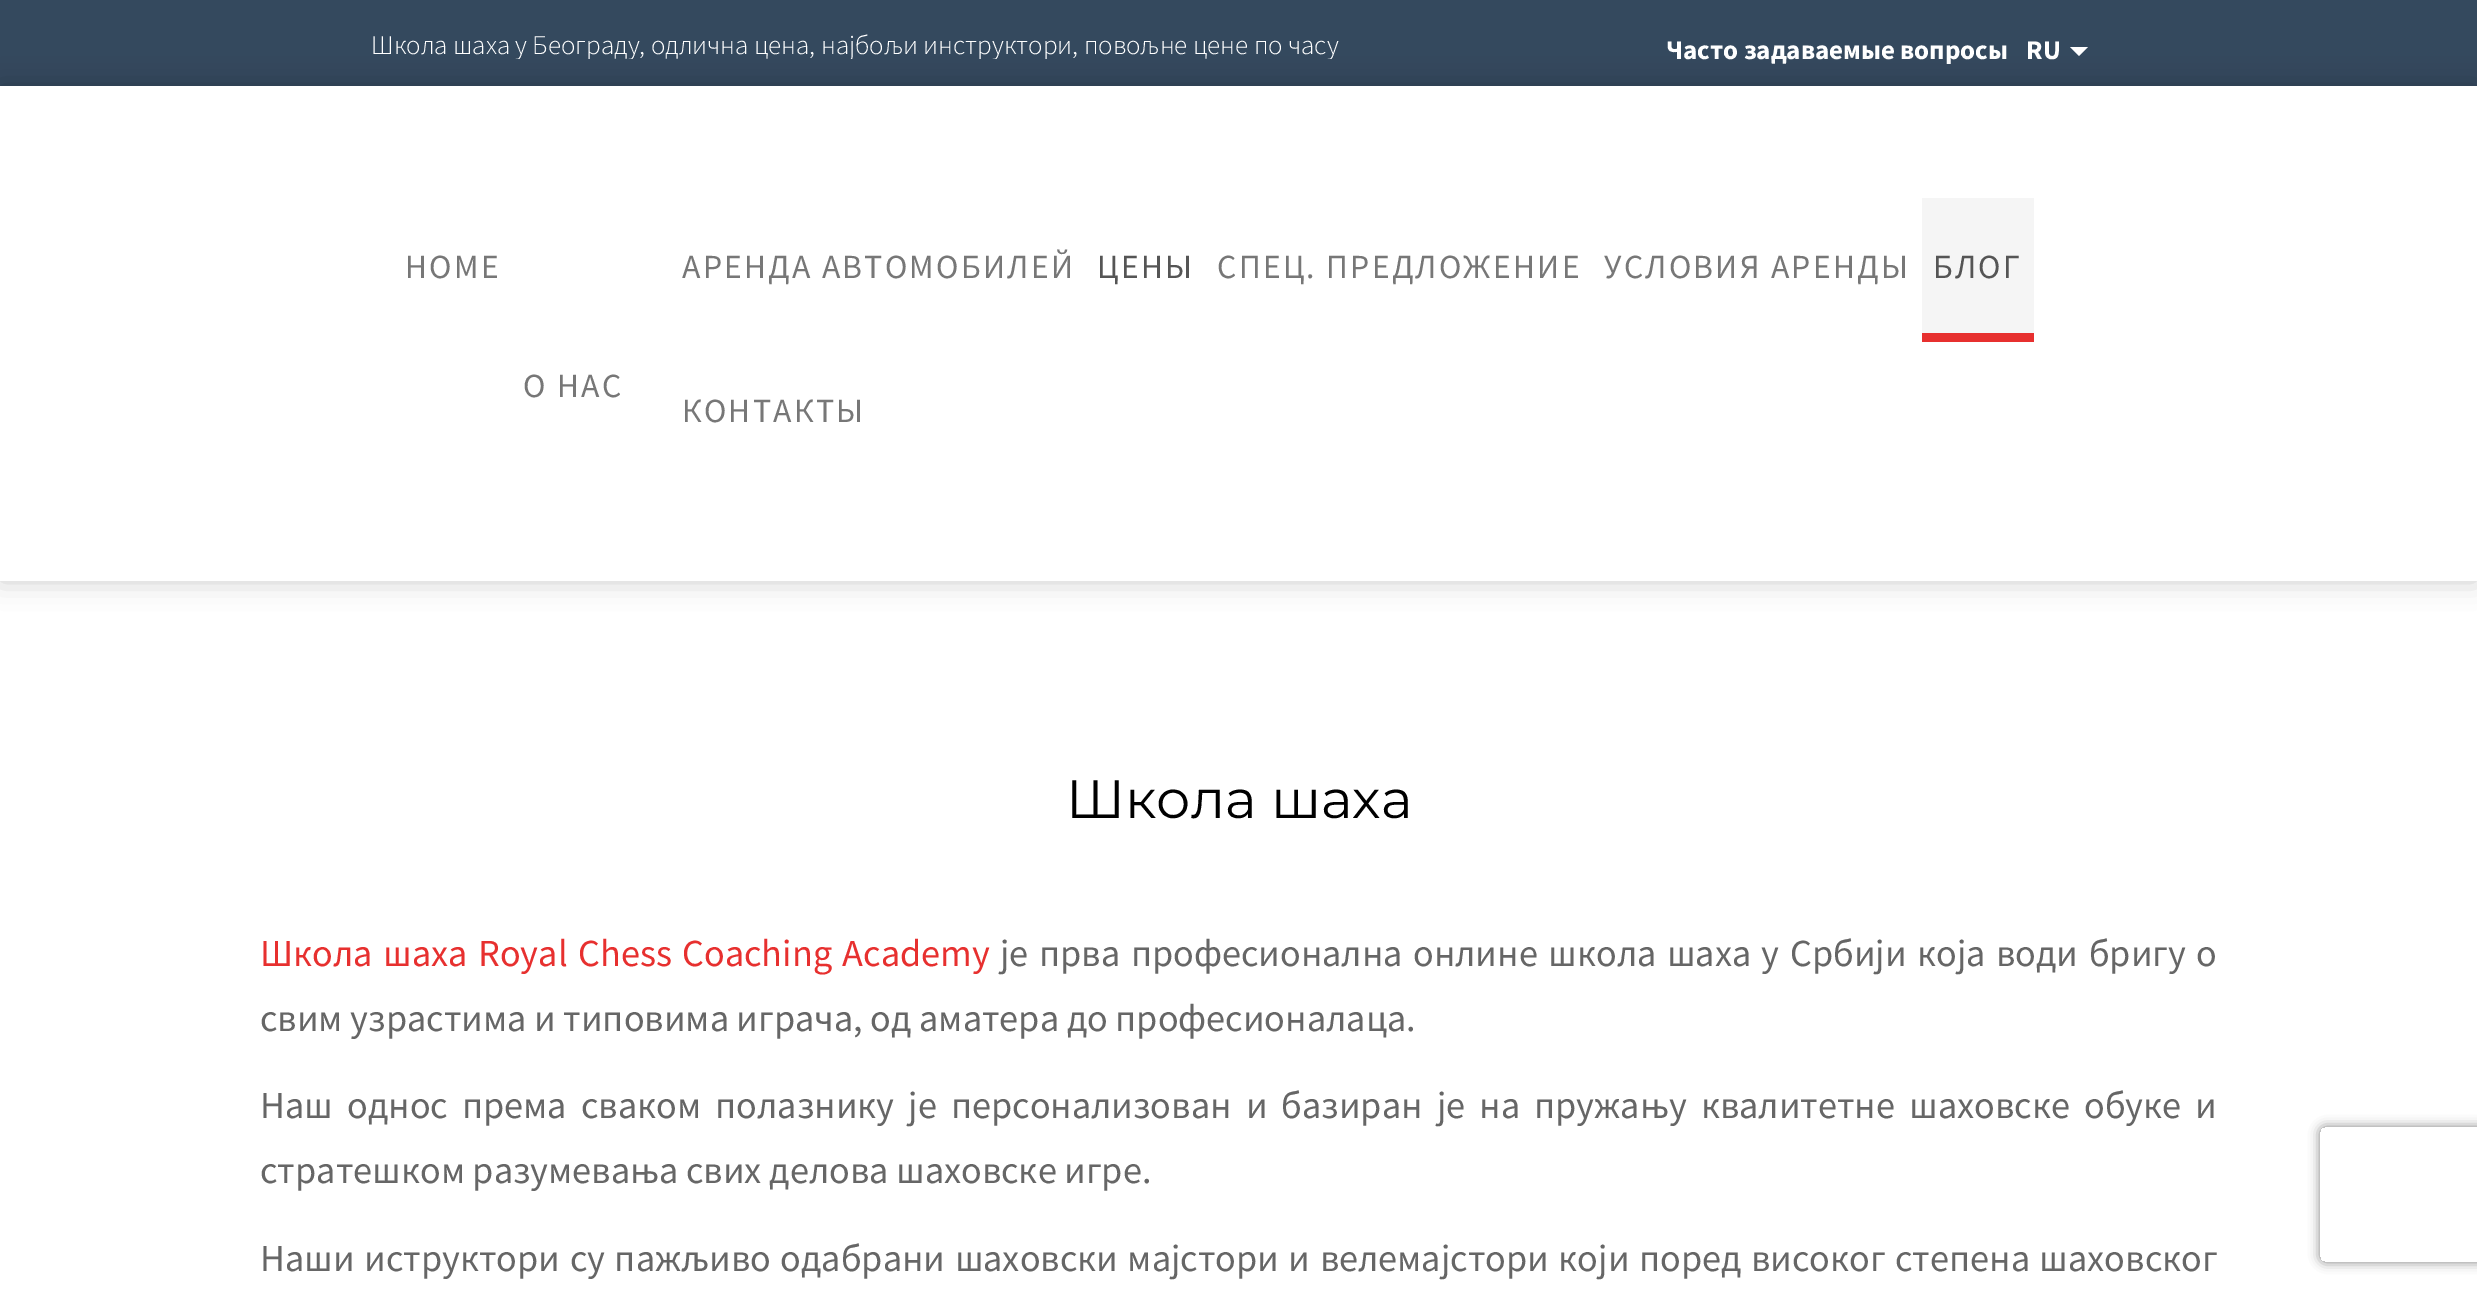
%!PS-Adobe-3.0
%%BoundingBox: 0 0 2477 1292
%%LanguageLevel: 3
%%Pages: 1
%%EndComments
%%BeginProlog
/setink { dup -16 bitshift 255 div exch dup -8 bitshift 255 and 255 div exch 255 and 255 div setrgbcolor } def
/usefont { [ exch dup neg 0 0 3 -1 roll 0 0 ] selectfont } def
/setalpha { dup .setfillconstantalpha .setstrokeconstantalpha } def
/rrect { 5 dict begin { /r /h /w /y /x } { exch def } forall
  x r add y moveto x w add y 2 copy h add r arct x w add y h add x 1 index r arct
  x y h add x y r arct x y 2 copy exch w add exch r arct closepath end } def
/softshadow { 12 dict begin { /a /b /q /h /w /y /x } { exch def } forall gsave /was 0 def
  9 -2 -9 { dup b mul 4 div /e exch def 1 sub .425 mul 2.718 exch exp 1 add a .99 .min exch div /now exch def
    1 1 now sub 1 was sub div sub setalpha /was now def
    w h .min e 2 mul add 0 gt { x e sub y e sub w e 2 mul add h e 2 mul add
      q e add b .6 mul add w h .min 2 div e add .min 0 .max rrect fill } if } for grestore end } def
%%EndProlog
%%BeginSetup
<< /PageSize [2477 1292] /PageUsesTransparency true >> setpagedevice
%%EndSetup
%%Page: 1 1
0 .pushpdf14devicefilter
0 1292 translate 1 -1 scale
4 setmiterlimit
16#FFFFFF setink
0 0 2477 1292 rectfill
16#34495E setink
0 0 2477 86 rectfill
gsave
371 29 1013 30 rectclip
/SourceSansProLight-Light 27 usefont
16#FFFFFF setink
371 54 moveto (Школа шаха у Београду, одлична цена, најбољи инструктори, повољне цене по часу) show
grestore
/SourceSansPro-Bold 27 usefont
16#FFFFFF setink
1666 59 moveto (Часто задаваемые вопросы) show
2026 59 moveto (RU) show
2070 47 moveto 2088 47 lineto 2079 56 lineto closepath fill
16#000000 setink
0 86 2477 495 0 13.5 0.2 softshadow
16#FFFFFF setink
0 86 2477 495 rectfill
/SourceSansPro-Regular 33.75 usefont
16#777777 setink
405 278 moveto 2.25 0 (HOME) ashow
682 278 moveto 2.25 0 (АРЕНДА АВТОМОБИЛЕЙ) ashow
16#555555 setink
1097 278 moveto 2.25 0 (ЦЕНЫ) ashow
16#777777 setink
1217 278 moveto 2.25 0 (СПЕЦ. ПРЕДЛОЖЕНИЕ) ashow
1604 278 moveto 2.25 0 (УСЛОВИЯ АРЕНДЫ) ashow
16#F5F5F5 setink
1922 198 112 135 rectfill
16#E7302F setink
1922 333 112 9 rectfill
16#555555 setink
1933 278 moveto 2.25 0 (БЛОГ) ashow
16#777777 setink
523 397 moveto 2.25 0 (О НАС) ashow
682 422 moveto 2.25 0 (КОНТАКТЫ) ashow
/Montserrat-Regular 54 usefont
16#000000 setink
1066 818 moveto (Школа шаха) show
/SourceSansPro-Regular 38.25 usefont
16#E7302F setink
260 966 moveto 2.9 0 32 (Школа шаха) widthshow
478 966 moveto 2.9 0 32 (Royal Chess Coaching Academy) widthshow
16#666666 setink
1000 966 moveto 2.9 0 32 (је прва професионална онлине школа шаха у Србији која води бригу о) widthshow
260 1031 moveto (свим узрастима и типовима играча, од аматера до професионалаца.) show
260 1118 moveto 6.5 0 32 (Наш однос према сваком полазнику је персонализован и базиран је на пружању квалитетне шаховске обуке и) widthshow
260 1183 moveto (стратешком разумевања свих делова шаховске игре.) show
260 1271 moveto 1.9 0 32 (Наши иструктори су пажљиво одабрани шаховски мајстори и велемајстори који поред високог степена шаховског) widthshow
gsave
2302 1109 moveto 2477 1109 lineto 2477 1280 lineto 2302 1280 lineto closepath 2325 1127 moveto 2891 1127 lineto 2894 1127 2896 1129 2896 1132 curveto 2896 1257 lineto 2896 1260 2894 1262 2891 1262 curveto 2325 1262 lineto 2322 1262 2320 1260 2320 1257 curveto 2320 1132 lineto 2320 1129 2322 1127 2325 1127 curveto closepath eoclip newpath
16#808080 setink
2320 1127 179 135 5 5.5 1 softshadow
grestore
.poppdf14devicefilter showpage
%%EOF
